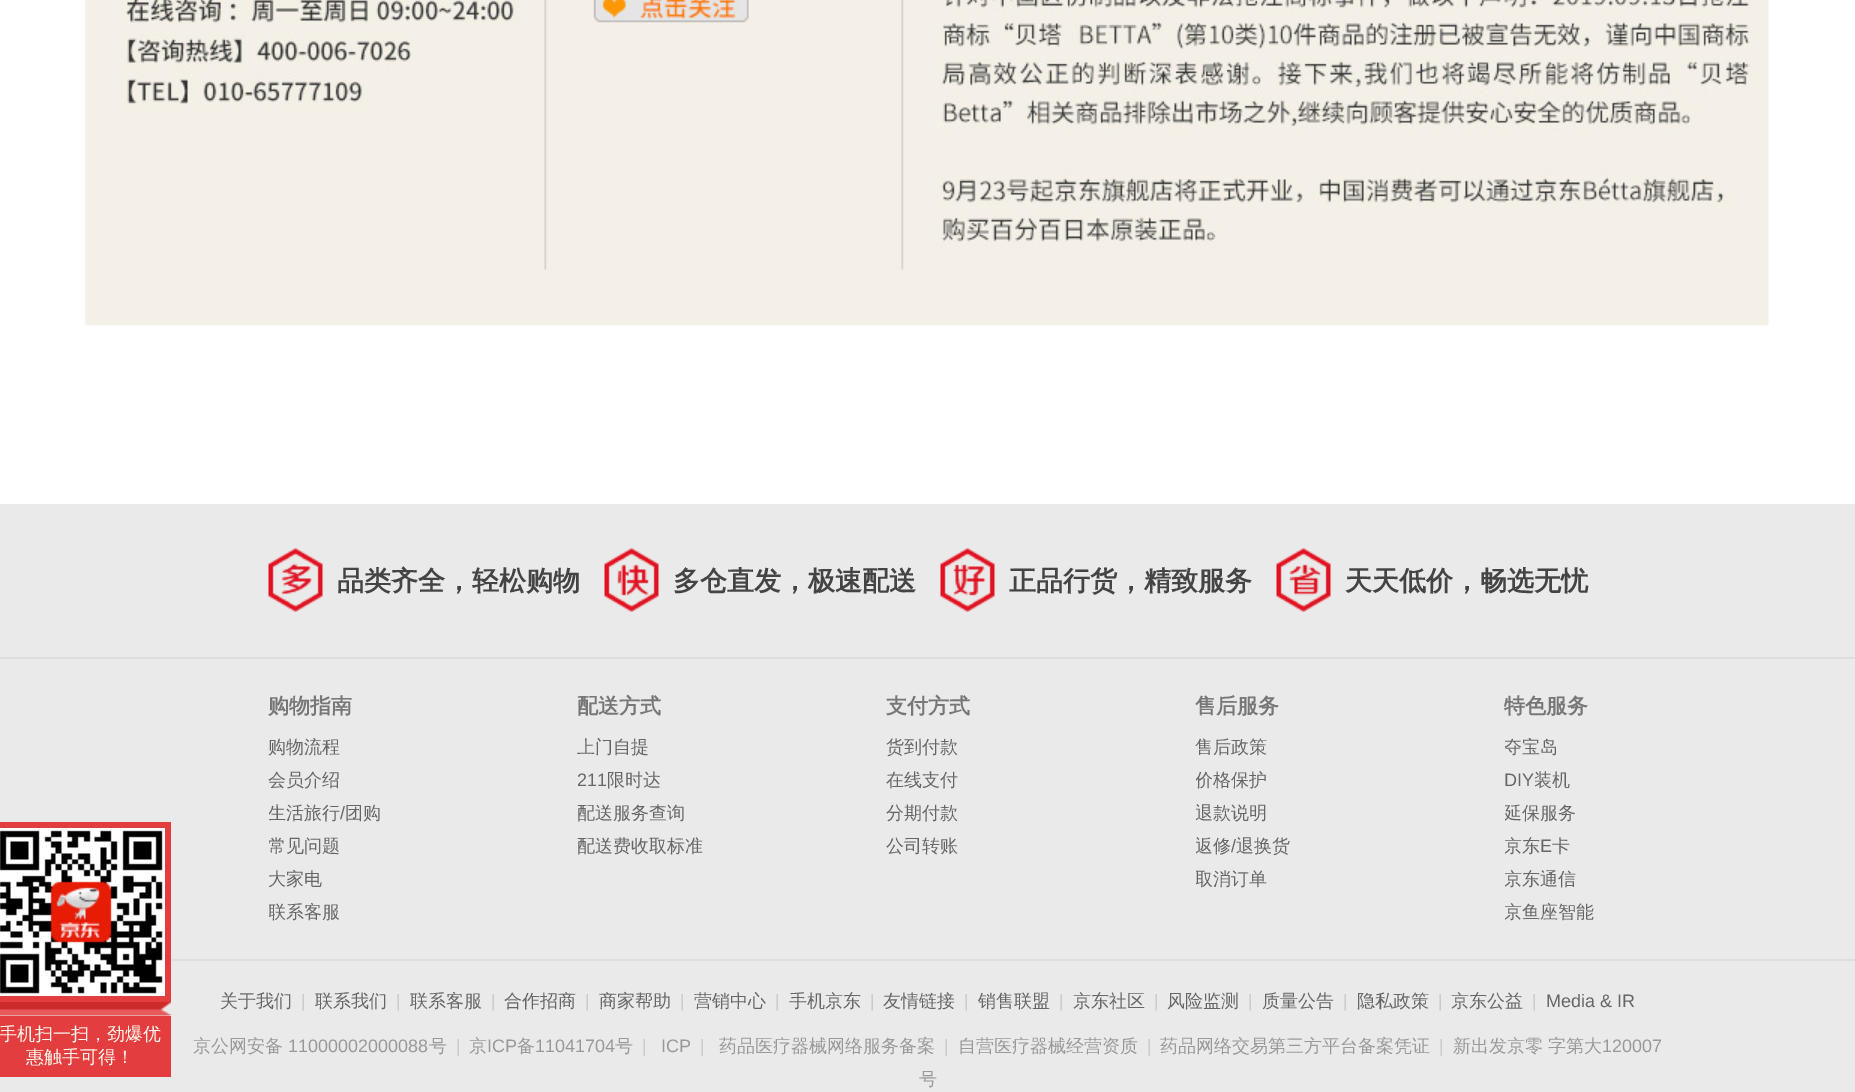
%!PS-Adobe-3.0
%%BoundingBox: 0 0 1855 1092
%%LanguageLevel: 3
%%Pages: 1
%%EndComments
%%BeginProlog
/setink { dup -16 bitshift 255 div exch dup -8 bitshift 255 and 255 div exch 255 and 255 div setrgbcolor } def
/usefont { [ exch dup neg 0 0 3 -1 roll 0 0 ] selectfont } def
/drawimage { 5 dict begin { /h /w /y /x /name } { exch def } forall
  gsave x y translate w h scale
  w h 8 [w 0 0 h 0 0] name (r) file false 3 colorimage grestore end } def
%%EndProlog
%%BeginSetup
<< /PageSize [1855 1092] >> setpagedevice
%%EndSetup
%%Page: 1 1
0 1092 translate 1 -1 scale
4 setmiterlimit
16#FFFFFF setink
0 0 1855 1092 rectfill
(img1.raw) 84 0 1685 326 drawimage
16#EAEAEA setink
0 504 1855 588 rectfill
16#E43D3F setink
0 822 171 180 rectfill
(img2.raw) 0 828 165 168 drawimage
(img3.raw) 0 1002 171 14 drawimage
0 1016 171 61 rectfill
/WenQuanYiZenHei-Medium 18 usefont
16#FFFBEE setink
-1 1040 moveto (手机扫一扫，劲爆优) show
26 1063 moveto (惠触手可得！) show
(img4.raw) 268 548 55 64 drawimage
/WenQuanYiZenHei-Bold 27 usefont
16#444444 setink
337 590 moveto (品类齐全，轻松购物) show
(img5.raw) 604 548 55 64 drawimage
673 590 moveto (多仓直发，极速配送) show
(img6.raw) 940 548 55 64 drawimage
1009 590 moveto (正品行货，精致服务) show
(img7.raw) 1276 548 55 64 drawimage
1345 590 moveto (天天低价，畅选无忧) show
16#DEDEDE setink
0 657 1855 2 rectfill
171 959 1684 2 rectfill
/WenQuanYiZenHei-Bold 21 usefont
16#777777 setink
268 713 moveto (购物指南) show
/WenQuanYiZenHei-Medium 18 usefont
16#666666 setink
268 753 moveto (购物流程) show
268 786 moveto (会员介绍) show
gsave
269 797 309 33 rectclip
268 819 moveto (生活旅行) show
grestore
/LiberationSans-Regular 18 usefont
340 819 moveto (/) show
/WenQuanYiZenHei-Medium 18 usefont
345 819 moveto (团购) show
gsave
269 830 309 33 rectclip
268 852 moveto (常见问题) show
grestore
268 885 moveto (大家电) show
gsave
269 896 309 33 rectclip
268 918 moveto (联系客服) show
grestore
/WenQuanYiZenHei-Bold 21 usefont
16#777777 setink
577 713 moveto (配送方式) show
/WenQuanYiZenHei-Medium 18 usefont
16#666666 setink
577 753 moveto (上门自提) show
gsave
578 764 309 33 rectclip
/LiberationSans-Regular 18 usefont
577 786 moveto (211) show
grestore
[
    [(限时达) 607 786]
    [(配送服务查询) 577 819]
    [(配送费收取标准) 577 852]
] { aload pop moveto show } forall
/WenQuanYiZenHei-Bold 21 usefont
16#777777 setink
886 713 moveto (支付方式) show
/WenQuanYiZenHei-Medium 18 usefont
16#666666 setink
[
    [(货到付款) 886 753]
    [(在线支付) 886 786]
    [(分期付款) 886 819]
    [(公司转账) 886 852]
] { aload pop moveto show } forall
/WenQuanYiZenHei-Bold 21 usefont
16#777777 setink
1195 713 moveto (售后服务) show
/WenQuanYiZenHei-Medium 18 usefont
16#666666 setink
1195 753 moveto (售后政策) show
gsave
1196 764 309 33 rectclip
1195 786 moveto (价格保护) show
grestore
gsave
1196 797 309 33 rectclip
1195 819 moveto (退款说明) show
grestore
gsave
1196 830 309 33 rectclip
1195 852 moveto (返修) show
grestore
/LiberationSans-Regular 18 usefont
1231 852 moveto (/) show
/WenQuanYiZenHei-Medium 18 usefont
1236 852 moveto (退换货) show
gsave
1196 863 309 33 rectclip
1195 885 moveto (取消订单) show
grestore
/WenQuanYiZenHei-Bold 21 usefont
16#777777 setink
1504 713 moveto (特色服务) show
gsave
1505 731 309 33 rectclip
/WenQuanYiZenHei-Medium 18 usefont
16#666666 setink
1504 753 moveto (夺宝岛) show
grestore
/LiberationSans-Regular 18 usefont
16#666666 setink
1504 786 moveto (DIY) show
/WenQuanYiZenHei-Medium 18 usefont
1534 786 moveto (装机) show
gsave
1505 797 309 33 rectclip
1504 819 moveto (延保服务) show
grestore
gsave
1505 830 309 33 rectclip
1504 852 moveto (京东) show
grestore
/LiberationSans-Regular 18 usefont
1540 852 moveto (E) show
/WenQuanYiZenHei-Medium 18 usefont
1552 852 moveto (卡) show
gsave
1505 863 309 33 rectclip
1504 885 moveto (京东通信) show
grestore
gsave
1505 896 309 33 rectclip
1504 918 moveto (京鱼座智能) show
grestore
220 1007 moveto (关于我们) show
/LiberationSans-Regular 18 usefont
16#CCCCCC setink
301 1007 moveto (|) show
/WenQuanYiZenHei-Medium 18 usefont
16#666666 setink
315 1007 moveto (联系我们) show
/LiberationSans-Regular 18 usefont
16#CCCCCC setink
396 1007 moveto (|) show
/WenQuanYiZenHei-Medium 18 usefont
16#666666 setink
410 1007 moveto (联系客服) show
/LiberationSans-Regular 18 usefont
16#CCCCCC setink
491 1007 moveto (|) show
/WenQuanYiZenHei-Medium 18 usefont
16#666666 setink
504 1007 moveto (合作招商) show
/LiberationSans-Regular 18 usefont
16#CCCCCC setink
585 1007 moveto (|) show
/WenQuanYiZenHei-Medium 18 usefont
16#666666 setink
599 1007 moveto (商家帮助) show
/LiberationSans-Regular 18 usefont
16#CCCCCC setink
680 1007 moveto (|) show
/WenQuanYiZenHei-Medium 18 usefont
16#666666 setink
694 1007 moveto (营销中心) show
/LiberationSans-Regular 18 usefont
16#CCCCCC setink
775 1007 moveto (|) show
/WenQuanYiZenHei-Medium 18 usefont
16#666666 setink
789 1007 moveto (手机京东) show
/LiberationSans-Regular 18 usefont
16#CCCCCC setink
870 1007 moveto (|) show
/WenQuanYiZenHei-Medium 18 usefont
16#666666 setink
883 1007 moveto (友情链接) show
/LiberationSans-Regular 18 usefont
16#CCCCCC setink
964 1007 moveto (|) show
/WenQuanYiZenHei-Medium 18 usefont
16#666666 setink
978 1007 moveto (销售联盟) show
/LiberationSans-Regular 18 usefont
16#CCCCCC setink
1059 1007 moveto (|) show
/WenQuanYiZenHei-Medium 18 usefont
16#666666 setink
1073 1007 moveto (京东社区) show
/LiberationSans-Regular 18 usefont
16#CCCCCC setink
1154 1007 moveto (|) show
/WenQuanYiZenHei-Medium 18 usefont
16#666666 setink
1167 1007 moveto (风险监测) show
/LiberationSans-Regular 18 usefont
16#CCCCCC setink
1248 1007 moveto (|) show
/WenQuanYiZenHei-Medium 18 usefont
16#666666 setink
1262 1007 moveto (质量公告) show
/LiberationSans-Regular 18 usefont
16#CCCCCC setink
1343 1007 moveto (|) show
/WenQuanYiZenHei-Medium 18 usefont
16#666666 setink
1357 1007 moveto (隐私政策) show
/LiberationSans-Regular 18 usefont
16#CCCCCC setink
1438 1007 moveto (|) show
/WenQuanYiZenHei-Medium 18 usefont
16#666666 setink
1451 1007 moveto (京东公益) show
/LiberationSans-Regular 18 usefont
16#CCCCCC setink
1532 1007 moveto (|) show
16#666666 setink
1546 1007 moveto (Media & IR) show
/WenQuanYiZenHei-Medium 18 usefont
16#999999 setink
193 1052 moveto (京公网安备) show
/LiberationSans-Regular 18 usefont
288 1052 moveto (11000002000088) show
/WenQuanYiZenHei-Medium 18 usefont
429 1052 moveto (号) show
/LiberationSans-Regular 18 usefont
16#CCCCCC setink
456 1052 moveto (|) show
/WenQuanYiZenHei-Medium 18 usefont
16#999999 setink
469 1052 moveto (京) show
/LiberationSans-Regular 18 usefont
487 1052 moveto (ICP) show
/WenQuanYiZenHei-Medium 18 usefont
517 1052 moveto (备) show
/LiberationSans-Regular 18 usefont
535 1052 moveto (11041704) show
/WenQuanYiZenHei-Medium 18 usefont
615 1052 moveto (号) show
/LiberationSans-Regular 18 usefont
16#CCCCCC setink
642 1052 moveto (|) show
16#999999 setink
661 1052 moveto (ICP) show
16#CCCCCC setink
700 1052 moveto (|) show
/WenQuanYiZenHei-Medium 18 usefont
16#999999 setink
719 1052 moveto (药品医疗器械网络服务备案) show
/LiberationSans-Regular 18 usefont
16#CCCCCC setink
944 1052 moveto (|) show
/WenQuanYiZenHei-Medium 18 usefont
16#999999 setink
958 1052 moveto (自营医疗器械经营资质) show
/LiberationSans-Regular 18 usefont
16#CCCCCC setink
1147 1052 moveto (|) show
/WenQuanYiZenHei-Medium 18 usefont
16#999999 setink
1160 1052 moveto (药品网络交易第三方平台备案凭证) show
/LiberationSans-Regular 18 usefont
16#CCCCCC setink
1439 1052 moveto (|) show
/WenQuanYiZenHei-Medium 18 usefont
16#999999 setink
1453 1052 moveto (新出发京零 字第大) show
/LiberationSans-Regular 18 usefont
1602 1052 moveto (120007) show
/WenQuanYiZenHei-Medium 18 usefont
919 1085 moveto (号) show
showpage
%%EOF
